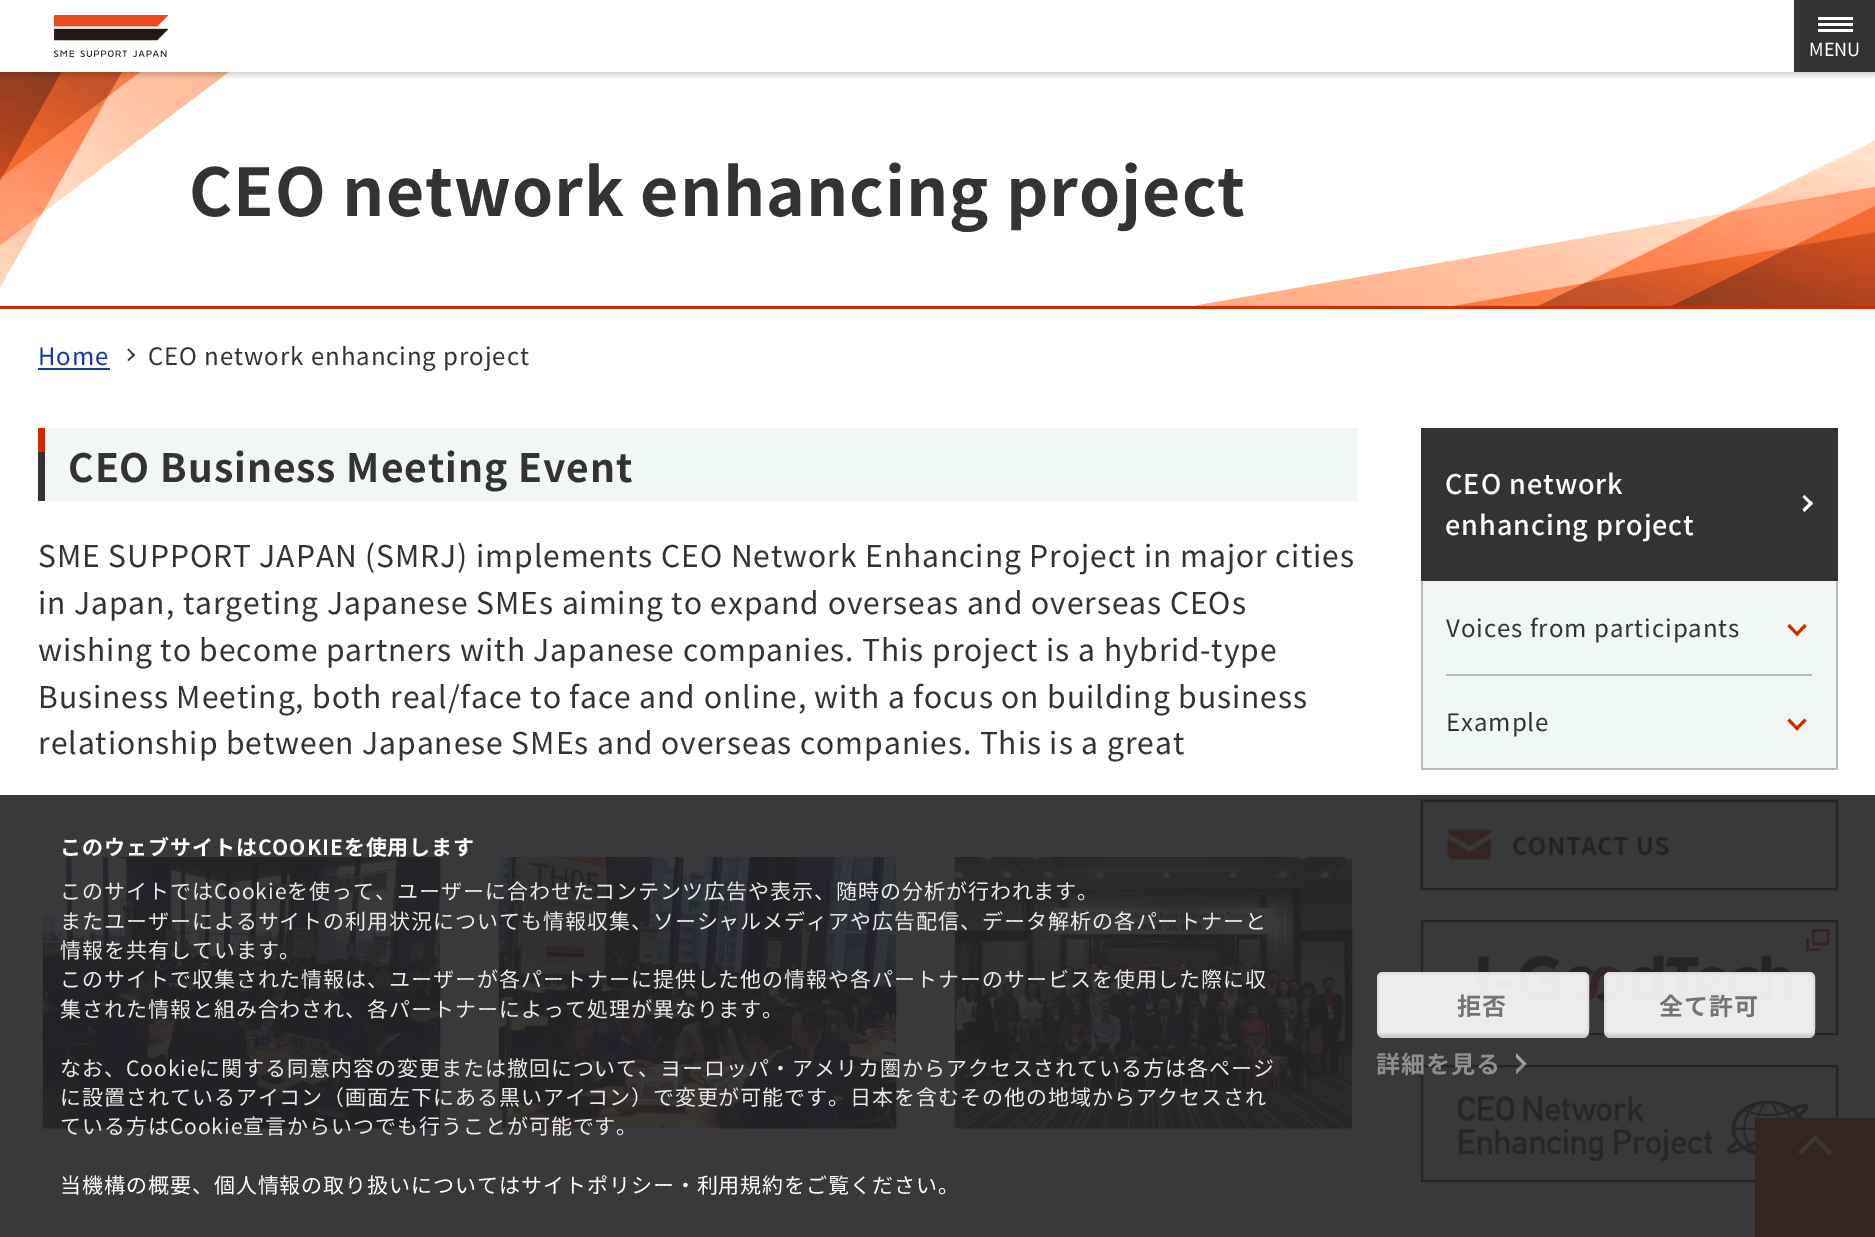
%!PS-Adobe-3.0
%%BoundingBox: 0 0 1875 1237
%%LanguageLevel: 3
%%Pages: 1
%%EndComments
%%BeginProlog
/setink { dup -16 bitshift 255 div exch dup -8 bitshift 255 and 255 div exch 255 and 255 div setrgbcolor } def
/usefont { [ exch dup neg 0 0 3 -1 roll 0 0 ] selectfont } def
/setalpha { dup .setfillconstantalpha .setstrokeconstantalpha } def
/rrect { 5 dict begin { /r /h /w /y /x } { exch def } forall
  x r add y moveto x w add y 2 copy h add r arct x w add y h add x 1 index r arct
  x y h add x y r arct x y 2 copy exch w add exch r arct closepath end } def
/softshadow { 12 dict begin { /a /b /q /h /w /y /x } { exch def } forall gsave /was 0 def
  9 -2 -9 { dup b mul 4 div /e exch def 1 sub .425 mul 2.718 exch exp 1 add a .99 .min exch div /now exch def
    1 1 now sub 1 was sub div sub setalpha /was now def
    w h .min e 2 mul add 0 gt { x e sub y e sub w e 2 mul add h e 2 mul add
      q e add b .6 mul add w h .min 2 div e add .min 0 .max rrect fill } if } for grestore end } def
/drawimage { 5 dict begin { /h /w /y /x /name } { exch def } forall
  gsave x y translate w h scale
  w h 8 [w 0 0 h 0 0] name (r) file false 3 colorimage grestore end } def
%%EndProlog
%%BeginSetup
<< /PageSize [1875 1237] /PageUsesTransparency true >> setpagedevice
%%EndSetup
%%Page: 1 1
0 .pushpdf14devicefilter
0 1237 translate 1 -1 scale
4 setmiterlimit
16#FFFFFF setink
0 0 1875 1237 rectfill
(img2.raw) 0 72 1875 234 drawimage
gsave
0 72 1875 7 rectclip
16#000000 setink
0 3 1875 72 0 3 0.2 softshadow
grestore
(img1.raw) 54 15 114 42 drawimage
[
    [1794 0 81 72 16#333333]
    [1818 23 35 3 16#FFFFFF]
    [1818 17 35 3 16#FFFFFF]
    [1818 29 35 3 16#FFFFFF]
] { aload pop setink rectfill } forall
/NotoSansJP-Regular 18 usefont
1809 56 moveto (MENU) show
16#CB2C00 setink
0 306 1875 3 rectfill
/NotoSansJP-Bold 66 usefont
16#333333 setink
189 216 moveto 0.95 0 (CEO network enhancing project) ashow
/NotoSansJP-Regular 24 usefont
16#14399E setink
38 365 moveto 0.95 0 (Home) ashow
38 368 72 2 rectfill
16#333333 setink
128.5 348.5 moveto 135 355 lineto 133.5 356 lineto 127.5 349.5 lineto closepath fill
133.5 354 moveto 135 355 lineto 128.5 361 lineto 127.5 360 lineto closepath fill
148 365 moveto 0.95 0 (CEO network enhancing project) ashow
[
    [45 428 1313 73 16#F2F6F7]
    [38 428 7 24 16#CB2C00]
    [38 452 7 49 16#333333]
] { aload pop setink rectfill } forall
/NotoSansJP-Bold 39 usefont
68 482 moveto 0.95 0 (CEO Business Meeting Event) ashow
/NotoSansJP-Regular 30 usefont
38 567 moveto 0.95 0 (SME SUPPORT JAPAN \(SMRJ\) implements CEO Network Enhancing Project in major cities) ashow
38 614 moveto 0.95 0 (in Japan, targeting Japanese SMEs aiming to expand overseas and overseas CEOs) ashow
38 661 moveto 0.95 0 (wishing to become partners with Japanese companies. This project is a hybrid-type) ashow
38 708 moveto 0.95 0 (Business Meeting, both real/face to face and online, with a focus on building business) ashow
38 754 moveto 0.95 0 (relationship between Japanese SMEs and overseas companies. This is a great) ashow
(img3.raw) 42 857 399 272 drawimage
(img4.raw) 498 857 399 272 drawimage
(img5.raw) 954 857 399 272 drawimage
1421 428 417 153 rectfill
/NotoSansJP-Medium 27 usefont
16#FFFFFF setink
1445 494 moveto 0.95 0 (CEO network) ashow
1804.5 495 moveto 1813 503.5 lineto 1811 505.5 lineto 1802.5 497 lineto closepath fill
1811 501 moveto 1813 503.5 lineto 1804.5 512 lineto 1802.5 509.5 lineto closepath fill
1445 535 moveto 0.95 0 (enhancing project) ashow
[
    [1423 581 413 187 16#F2F6F7]
    [1836 581 2 189 16#BBBBBB]
    [1421 768 417 2 16#BBBBBB]
    [1421 581 2 189 16#BBBBBB]
    [1446 674 366 2 16#BBBBBB]
] { aload pop setink rectfill } forall
/NotoSansJP-Regular 24 usefont
16#333333 setink
1446 637 moveto 0.95 0 (Voices from participants) ashow
16#CB2C00 setink
1806.5 626.5 moveto 1797 636 lineto 1795 634 lineto 1804.5 624 lineto closepath fill
1799 634 moveto 1797 636 lineto 1787.5 626.5 lineto 1789.5 624 lineto closepath fill
16#333333 setink
1446 731 moveto 0.95 0 (Example) ashow
16#CB2C00 setink
1806.5 721 moveto 1797 730.5 lineto 1795 728.5 lineto 1804.5 718.5 lineto closepath fill
1799 728.5 moveto 1797 730.5 lineto 1787.5 721 lineto 1789.5 718.5 lineto closepath fill
(img6.raw) 1420 799 418 91 drawimage
16#333333 setink
2 setlinewidth
1422 801 415 88 rectstroke
(img7.raw) 1420 919 418 116 drawimage
1422 921 415 113 rectstroke
16#CB2C00 setink
2.5 setlinewidth
1813.25 930.25 14.5 13.5 rectstroke
1809 938 moveto 1809 948.5 lineto 1820.5 948.5 lineto 1820.5 951 lineto 1806 951 lineto 1806 938 lineto closepath fill
(img8.raw) 1420 1065 416 117 drawimage
16#333333 setink
2 setlinewidth
1422 1066 415 115 rectstroke
16#CB2C00 setink
1755 1118 120 119 rectfill
16#FFFFFF setink
1798 1152 moveto 1815 1135 lineto 1818 1138 lineto 1801 1155 lineto closepath fill
1812 1138 moveto 1815 1135 lineto 1832 1152 lineto 1829 1155 lineto closepath fill
0.9 setalpha
16#242427 setink
0 795 1875 442 rectfill
/NotoSansJP-Bold 21 usefont
1 setalpha
16#FFFFFF setink
60 855 moveto 0.95 0 (このウェブサイトはCOOKIEを使用します) ashow
/NotoSansJP-Regular 21 usefont
16#EAEAEA setink
60 899 moveto 0.95 0 (このサイトではCookieを使って、ユーザーに合わせたコンテンツ広告や表示、随時の分析が行われます。) ashow
60 929 moveto 0.95 0 (またユーザーによるサイトの利用状況についても情報収集、ソーシャルメディアや広告配信、データ解析の各パートナーと) ashow
60 958 moveto 0.95 0 (情報を共有しています。) ashow
60 987 moveto 0.95 0 (このサイトで収集された情報は、ユーザーが各パートナーに提供した他の情報や各パートナーのサービスを使用した際に収) ashow
60 1017 moveto 0.95 0 (集された情報と組み合わされ、各パートナーによって処理が異なります。) ashow
60 1076 moveto 0.95 0 (なお、Cookieに関する同意内容の変更または撤回について、ヨーロッパ・アメリカ圏からアクセスされている方は各ページ) ashow
60 1105 moveto 0.95 0 (に設置されているアイコン（画面左下にある黒いアイコン）で変更が可能です。日本を含むその他の地域からアクセスされ) ashow
60 1134 moveto 0.95 0 (ている方はCookie宣言からいつでも行うことが可能です。) ashow
16#FFFFFF setink
60 1193 moveto 0.95 0 (当機構の概要、個人情報の取り扱いについてはサイトポリシー・利用規約をご覧ください。) ashow
0.9 setalpha
16#DDDDDD setink
1377 1029 moveto 1377 1032 lineto 1377 1035 1380 1038 1383 1038 curveto 1583 1038 lineto 1586 1038 1589 1035 1589 1032 curveto 1589 981 lineto 1588 979 lineto 1588 1029 lineto 1588 1032 1586 1035 1582 1035 curveto 1383 1035 lineto 1380 1035 1377 1032 1377 1029 curveto closepath fill
16#FFFFFF setink
1377 972 212 63 6 rrect fill
16#DDDDDD setink
1378 973 210 61 5 rrect stroke
/NotoSansJP-Bold 24 usefont
1 setalpha
16#737373 setink
1457 1015 moveto 0.95 0 (拒否) ashow
0.9 setalpha
16#DDDDDD setink
1604 1031 moveto 1604 1032 lineto 1604 1035 1607 1038 1610 1038 curveto 1809 1038 lineto 1812 1038 1815 1035 1815 1032 curveto 1815 1029 lineto 1815 1032 1812 1035 1809 1035 curveto 1610 1035 lineto 1607 1035 1605 1034 1604 1031 curveto closepath fill
16#FFFFFF setink
1604 972 211 63 6 rrect fill
16#DDDDDD setink
1605 973 209 61 5 rrect stroke
1 setalpha
16#737373 setink
1659 1015 moveto 0.95 0 (全て許可) ashow
16#8F8F90 setink
1376 1073 moveto 0.95 0 (詳細を見る) ashow
16#A3A3A3 setink
1516 1053 moveto 1526.5 1064 lineto 1522.5 1064 lineto 1516 1057.5 lineto closepath fill
0.9 setalpha
16#999999 setink
1526.5 1064 moveto 1516 1074.5 lineto 1516 1070 lineto 1522.5 1064 lineto closepath fill
.poppdf14devicefilter showpage
%%EOF
